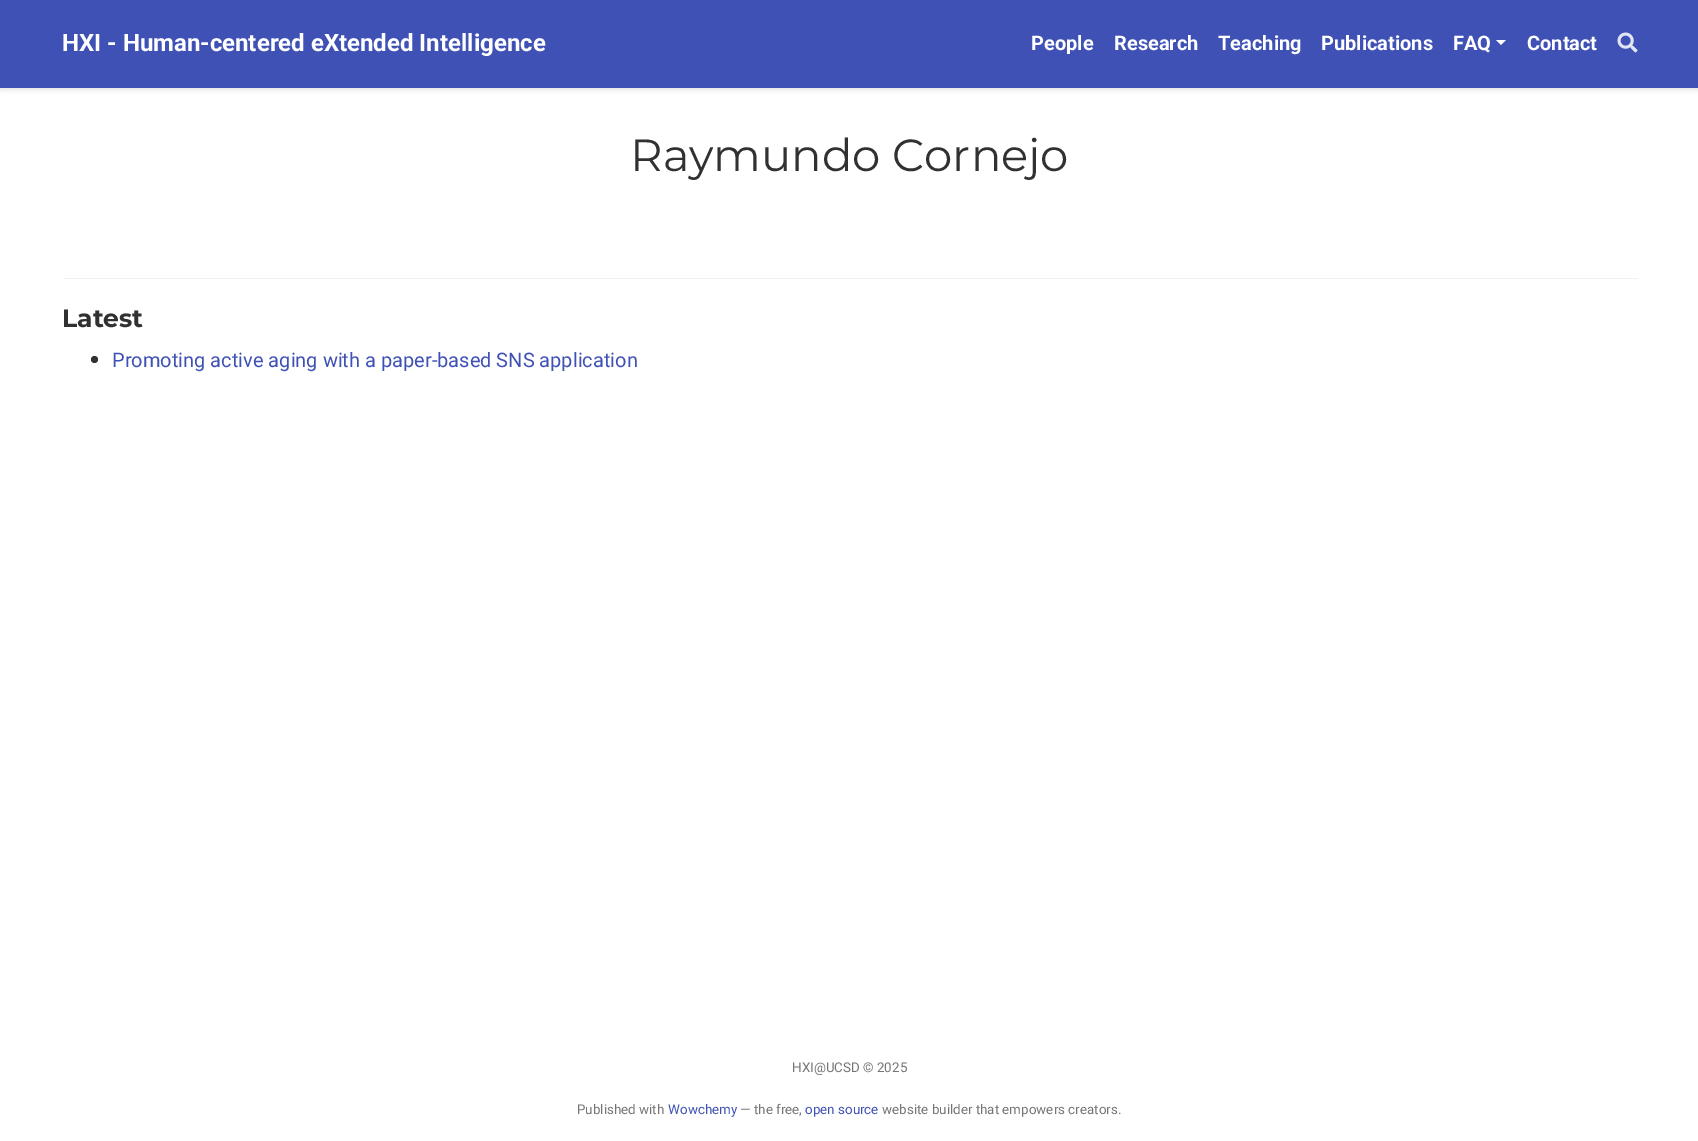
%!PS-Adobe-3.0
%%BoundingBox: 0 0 1698 1141
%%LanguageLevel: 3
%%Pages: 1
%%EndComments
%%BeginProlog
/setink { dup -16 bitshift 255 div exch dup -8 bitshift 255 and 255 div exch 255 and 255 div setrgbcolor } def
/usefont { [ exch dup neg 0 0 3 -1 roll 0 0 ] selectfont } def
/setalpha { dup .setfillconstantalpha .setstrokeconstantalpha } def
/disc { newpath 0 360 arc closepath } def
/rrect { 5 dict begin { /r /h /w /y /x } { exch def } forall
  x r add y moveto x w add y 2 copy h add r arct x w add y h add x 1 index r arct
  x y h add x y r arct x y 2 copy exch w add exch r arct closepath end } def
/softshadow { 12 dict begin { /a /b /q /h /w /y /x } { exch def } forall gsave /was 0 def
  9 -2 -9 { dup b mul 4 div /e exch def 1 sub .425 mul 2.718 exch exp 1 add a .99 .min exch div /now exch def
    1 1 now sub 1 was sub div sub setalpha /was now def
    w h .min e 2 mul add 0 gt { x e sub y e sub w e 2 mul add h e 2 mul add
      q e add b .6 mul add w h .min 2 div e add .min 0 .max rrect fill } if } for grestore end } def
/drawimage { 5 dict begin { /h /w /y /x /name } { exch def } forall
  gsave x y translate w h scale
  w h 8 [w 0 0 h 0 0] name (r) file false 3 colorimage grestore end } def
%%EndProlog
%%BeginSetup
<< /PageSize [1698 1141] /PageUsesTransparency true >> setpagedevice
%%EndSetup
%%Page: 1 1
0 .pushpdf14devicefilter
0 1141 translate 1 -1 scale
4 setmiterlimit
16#FFFFFF setink
0 0 1698 1141 rectfill
16#000000 setink
0 3 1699 87 0 2.5 0.11 softshadow
16#3F51B5 setink
0 0 1698 88 rectfill
/Roboto-Bold 24 usefont
16#FFFFFF setink
62 51 moveto (HXI - Human-centered eXtended Intelligence) show
/Roboto-Bold 20 usefont
[
    [(People) 1031 50]
    [(Research) 1114 50]
    [(Teaching) 1218 50]
    [(Publications) 1321 50]
    [(FAQ) 1453 50]
] { aload pop moveto show } forall
1496 40 moveto 1506 40 lineto 1501 45 lineto closepath fill
1527 50 moveto (Contact) show
(img1.raw) 1617 32 21 21 drawimage
/Montserrat-Regular 45 usefont
16#313131 setink
630 171 moveto (Raymundo Cornejo) show
16#F2F2F2 setink
63 278 1575 1 rectfill
/Montserrat-Bold 25 usefont
16#313131 setink
62 327 moveto (Latest) show
16#333333 setink
94.5 359.5 3.5 disc fill
/Roboto-Regular 20 usefont
16#3F51B5 setink
112 367 moveto (Promoting active aging with a paper-based SNS application) show
/Roboto-Regular 13.4 usefont
16#757575 setink
792 1072 moveto (HXI@UCSD © 2025) show
577 1114 moveto (Published with) show
16#3F51B5 setink
668 1114 moveto (Wowchemy) show
16#757575 setink
740 1114 moveto (— the free,) show
16#3F51B5 setink
805 1114 moveto (open source) show
16#757575 setink
882 1114 moveto (website builder that empowers creators.) show
.poppdf14devicefilter showpage
%%EOF
